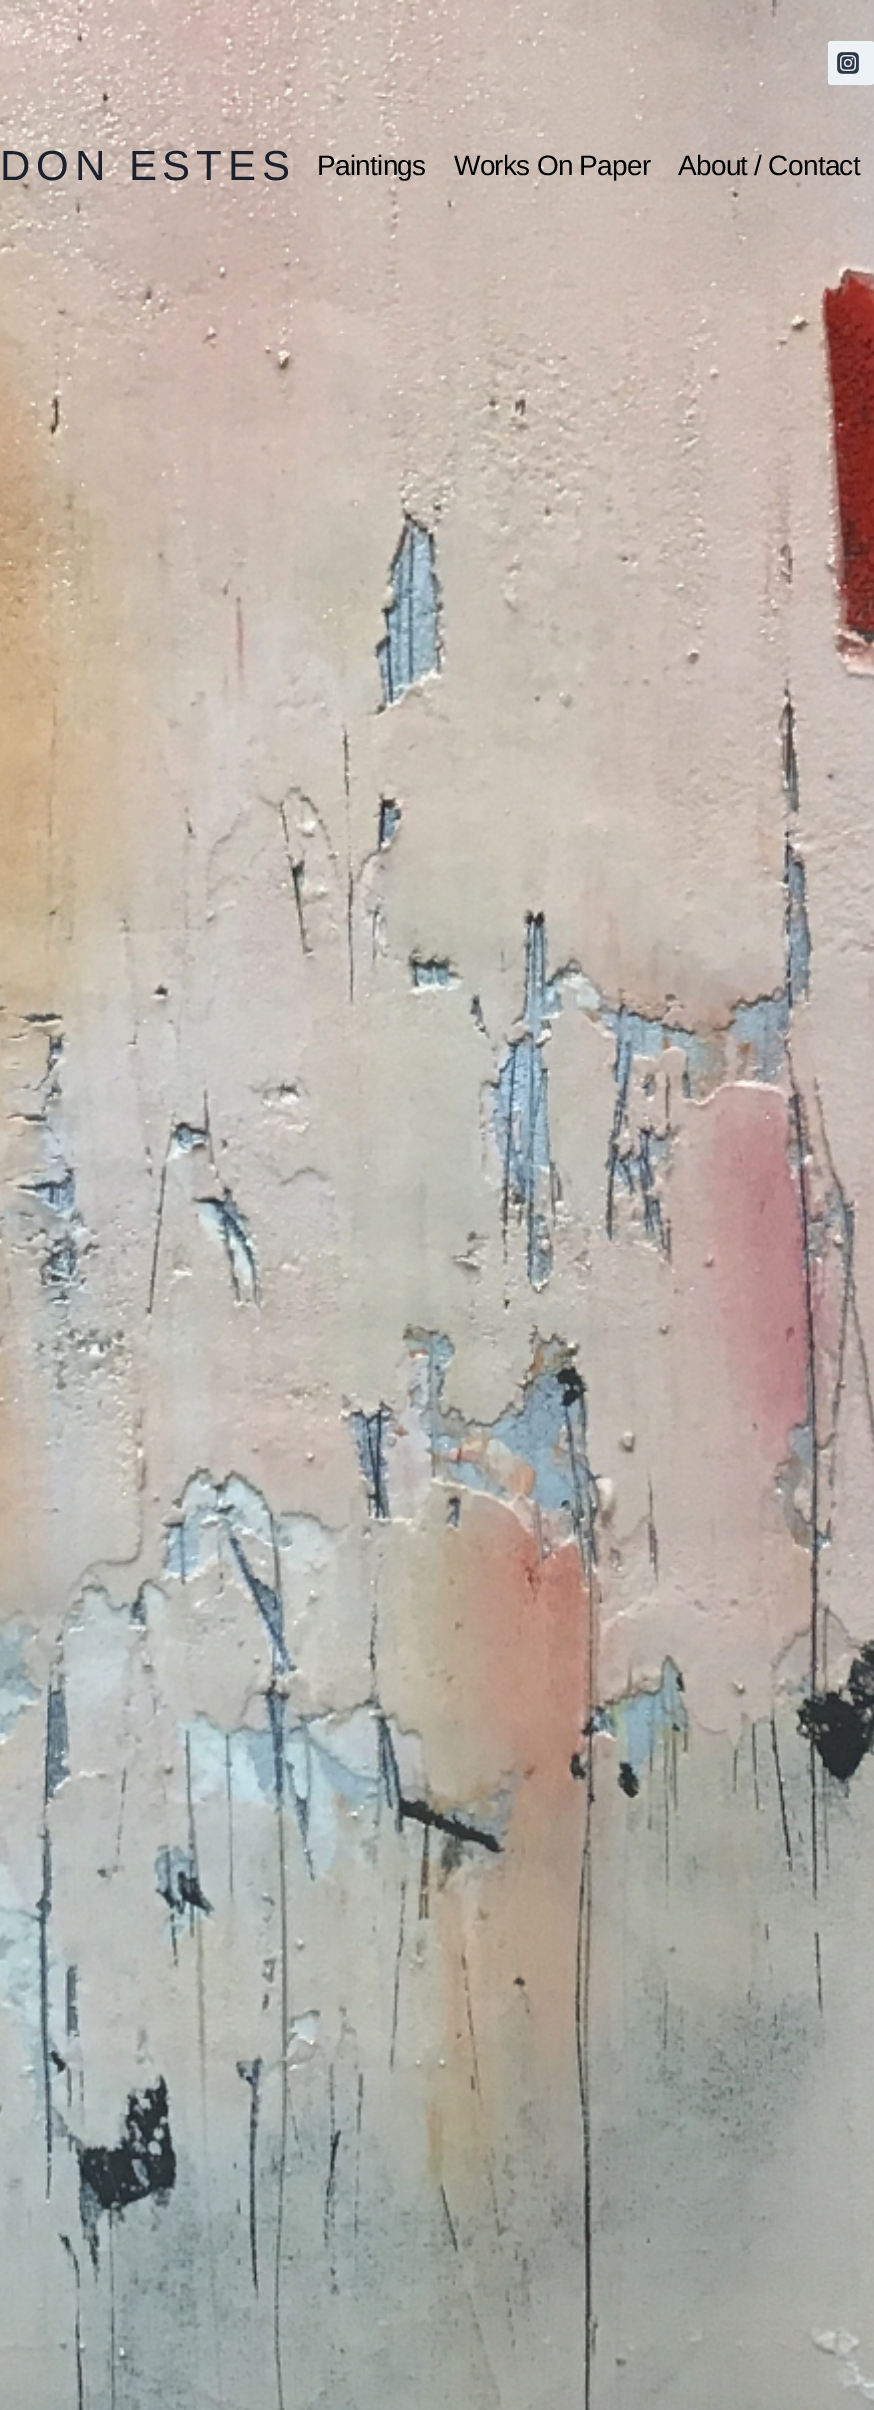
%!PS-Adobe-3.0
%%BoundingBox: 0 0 874 2410
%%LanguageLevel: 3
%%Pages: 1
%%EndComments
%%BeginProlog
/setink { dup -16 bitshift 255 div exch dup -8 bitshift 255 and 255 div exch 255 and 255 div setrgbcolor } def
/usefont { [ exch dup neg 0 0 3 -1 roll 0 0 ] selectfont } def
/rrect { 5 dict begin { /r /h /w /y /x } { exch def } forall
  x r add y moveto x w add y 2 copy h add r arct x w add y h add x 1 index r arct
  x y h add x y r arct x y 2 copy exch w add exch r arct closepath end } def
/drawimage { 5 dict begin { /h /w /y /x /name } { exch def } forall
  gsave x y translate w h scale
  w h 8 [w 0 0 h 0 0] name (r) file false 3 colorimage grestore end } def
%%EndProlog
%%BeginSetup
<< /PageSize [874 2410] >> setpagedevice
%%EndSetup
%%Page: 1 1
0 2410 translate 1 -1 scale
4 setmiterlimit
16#FFFFFF setink
0 0 874 2410 rectfill
(img1.raw) 0 0 874 2410 drawimage
16#EDF2F7 setink
828 41 46 44 3 rrect fill
(img2.raw) 837 52 22 22 drawimage
/LiberationSans-Regular 42 usefont
16#1A202C setink
0 180 moveto 5.9 0 (DON ESTES) ashow
/LiberationSans-Regular 28 usefont
16#000000 setink
317 175 moveto -0.75 0 (Paintings) ashow
454 175 moveto -0.75 0 (Works On Paper) ashow
678 175 moveto -0.75 0 (About / Contact) ashow
showpage
%%EOF
